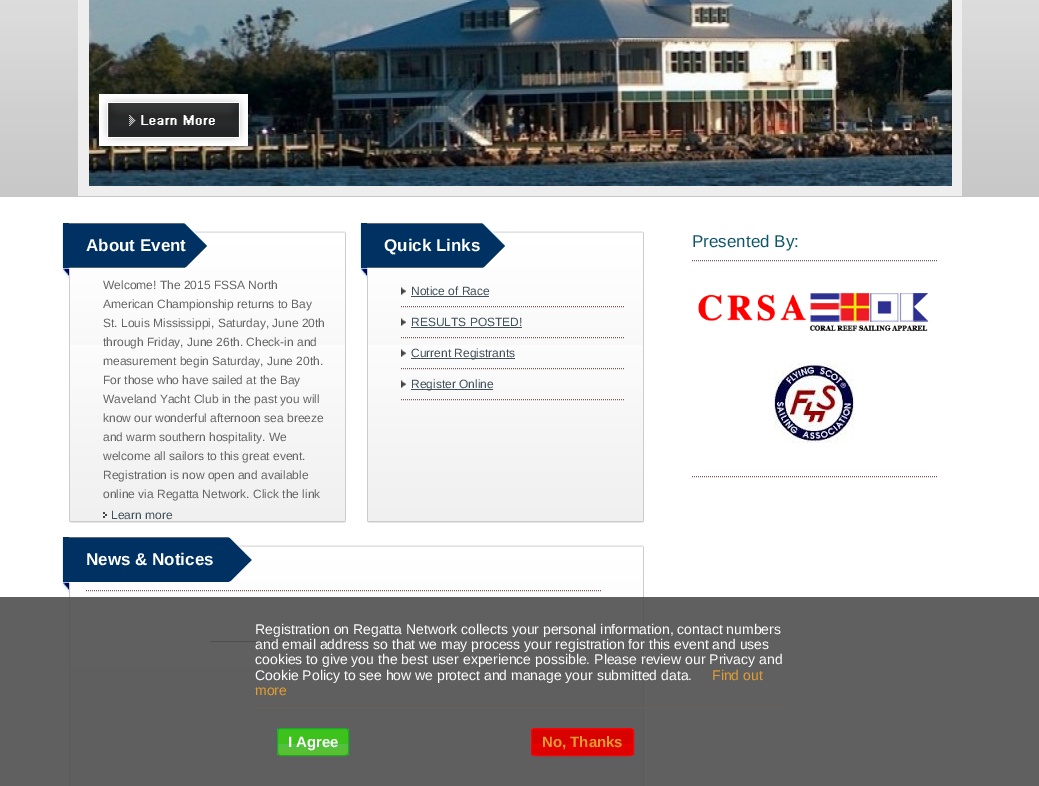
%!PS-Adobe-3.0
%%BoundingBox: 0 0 1039 786
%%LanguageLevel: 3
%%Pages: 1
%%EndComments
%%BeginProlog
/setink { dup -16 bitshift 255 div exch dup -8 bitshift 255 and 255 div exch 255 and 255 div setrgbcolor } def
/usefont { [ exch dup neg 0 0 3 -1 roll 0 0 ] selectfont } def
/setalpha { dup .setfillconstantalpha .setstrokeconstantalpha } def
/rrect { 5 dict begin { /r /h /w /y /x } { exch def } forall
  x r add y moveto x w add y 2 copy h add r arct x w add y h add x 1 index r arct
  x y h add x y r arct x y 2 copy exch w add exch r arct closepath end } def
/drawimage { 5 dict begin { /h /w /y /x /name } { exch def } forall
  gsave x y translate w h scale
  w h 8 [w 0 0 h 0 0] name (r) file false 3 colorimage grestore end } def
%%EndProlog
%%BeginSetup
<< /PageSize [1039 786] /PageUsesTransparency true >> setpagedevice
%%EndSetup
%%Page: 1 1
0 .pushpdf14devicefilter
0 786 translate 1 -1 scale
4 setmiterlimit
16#FFFFFF setink
0 0 1039 786 rectfill
(img1.raw) 0 0 1039 197 drawimage
16#EEEEEE setink
78 0 884 196 rectfill
(img2.raw) 89 0 863 186 drawimage
(img3.raw) 99 94 149 52 drawimage
(img4.raw) 69 223 277 300 drawimage
(img5.raw) 62 223 7 56 drawimage
/LiberationSans-Bold 17 usefont
16#FFFFFF setink
86 251 moveto (About Event) show
/LiberationSans-Regular 12 usefont
16#646464 setink
[
    [(Welcome! The 2015 FSSA North) 103 289]
    [(American Championship returns to Bay) 103 308]
    [(St. Louis Mississippi, Saturday, June 20th) 103 327]
    [(through Friday, June 26th. Check-in and) 103 346]
    [(measurement begin Saturday, June 20th.) 103 365]
    [(For those who have sailed at the Bay) 103 384]
    [(Waveland Yacht Club in the past you will) 103 403]
    [(know our wonderful afternoon sea breeze) 103 422]
    [(and warm southern hospitality. We) 103 441]
    [(welcome all sailors to this great event.) 103 460]
    [(Registration is now open and available) 103 479]
    [(online via Regatta Network. Click the link) 103 498]
] { aload pop moveto show } forall
(img6.raw) 103 512 4 6 drawimage
16#404F59 setink
111 519 moveto (Learn more) show
(img4.raw) 367 223 277 300 drawimage
(img5.raw) 360 223 7 56 drawimage
/LiberationSans-Bold 17 usefont
16#FFFFFF setink
384 251 moveto (Quick Links) show
(img7.raw) 401 287 5 8 drawimage
16#765C5C setink
[1 1] 0 setdash
401 306.5 moveto 625 306.5 lineto stroke
/LiberationSans-Regular 12 usefont
16#404F59 setink
411 295 moveto (Notice of Race) show
411 296 78 1 rectfill
(img7.raw) 401 318 5 8 drawimage
16#765C5C setink
401 337.5 moveto 625 337.5 lineto stroke
16#404F59 setink
411 326 moveto (RESULTS POSTED!) show
411 327 111 1 rectfill
(img7.raw) 401 349 5 8 drawimage
16#765C5C setink
401 368.5 moveto 625 368.5 lineto stroke
16#404F59 setink
411 358 104 1 rectfill
411 357 moveto (Current Registrants) show
(img7.raw) 401 380 5 8 drawimage
16#765C5C setink
401 399.5 moveto 625 399.5 lineto stroke
16#404F59 setink
411 389 82 1 rectfill
411 388 moveto (Register Online) show
(img8.raw) 69 537 575 249 drawimage
(img5.raw) 62 537 7 56 drawimage
/LiberationSans-Bold 17 usefont
16#FFFFFF setink
86 565 moveto (News & Notices) show
16#765C5C setink
86 590.5 moveto 601 590.5 lineto stroke
16#404F59 setink
210 641 90 1 rectfill
303 641 10 1 rectfill
16#765C5C setink
692 260.5 moveto 937 260.5 lineto stroke
/LiberationSans-Regular 17 usefont
16#0C556A setink
692 247 moveto (Presented By:) show
(img9.raw) 698 293 231 38 drawimage
(img10.raw) 774 363 80 80 drawimage
16#765C5C setink
692 476.5 moveto 937 476.5 lineto stroke
0.9 setalpha
16#4F4F4F setink
0 597 1039 189 rectfill
1 setalpha
16#765C5C setink
255 707.5 moveto 784 707.5 lineto stroke
/LiberationSans-Regular 14 usefont
16#FFFFFF setink
[
    [(Registration on Regatta Network collects your personal information, contact numbers) 255 634]
    [(and email address so that we may process your registration for this event and uses) 255 649]
    [(cookies to give you the best user experience possible. Please review our Privacy and) 255 664]
    [(Cookie Policy to see how we protect and manage your submitted data.) 255 680]
] { aload pop moveto show } forall
16#E29D32 setink
712 680 moveto (Find out) show
255 695 moveto (more) show
gsave
277 728 72 28 4 rrect clip newpath
gsave 277 729 moveto 349 729 lineto 349 755 lineto 277 755 lineto closepath clip newpath
<< /ShadingType 2 /ColorSpace /DeviceRGB /Coords [313 729 313 755] /Extend [true true] /Function << /FunctionType 3 /Domain [0 1] /Functions [<< /FunctionType 2 /Domain [0 1] /C0 [0.267 0.78 0.404] /C1 [0.267 0.78 0.404] /N 1 >> << /FunctionType 2 /Domain [0 1] /C0 [0.267 0.78 0.404] /C1 [0.361 0.749 0.165] /N 1 >>] /Bounds [0.05] /Encode [0 1 0 1] >> >> shfill grestore
grestore
16#3DC21B setink
281 744 moveto 348 744 lineto 348 728 352 729 334 729 curveto 292 729 lineto 274 729 278 728 278 744 curveto closepath fill
16#18AB29 setink
[] 0 setdash
277.5 728.5 71 27 3.5 rrect stroke
/LiberationSans-Bold 15 usefont
16#FFFFFF setink
288 747 moveto (I Agree) show
gsave
531 728 103 28 4 rrect clip newpath
gsave 531 729 moveto 634 729 lineto 634 755 lineto 531 755 lineto closepath clip newpath
<< /ShadingType 2 /ColorSpace /DeviceRGB /Coords [583 729 583 755] /Extend [true true] /Function << /FunctionType 3 /Domain [0 1] /Functions [<< /FunctionType 2 /Domain [0 1] /C0 [1 0 0] /C1 [1 0 0] /N 1 >> << /FunctionType 2 /Domain [0 1] /C0 [1 0 0] /C1 [0.851 0 0] /N 1 >>] /Bounds [0.05] /Encode [0 1 0 1] >> >> shfill grestore
grestore
16#D90000 setink
535 744 moveto 633 744 lineto 633 726 636 729 614 729 curveto 551 729 lineto 529 729 532 726 532 744 curveto closepath fill
16#FF0000 setink
531.5 728.5 102 27 3.5 rrect stroke
16#E29D32 setink
542 747 moveto (No, Thanks) show
.poppdf14devicefilter showpage
%%EOF
